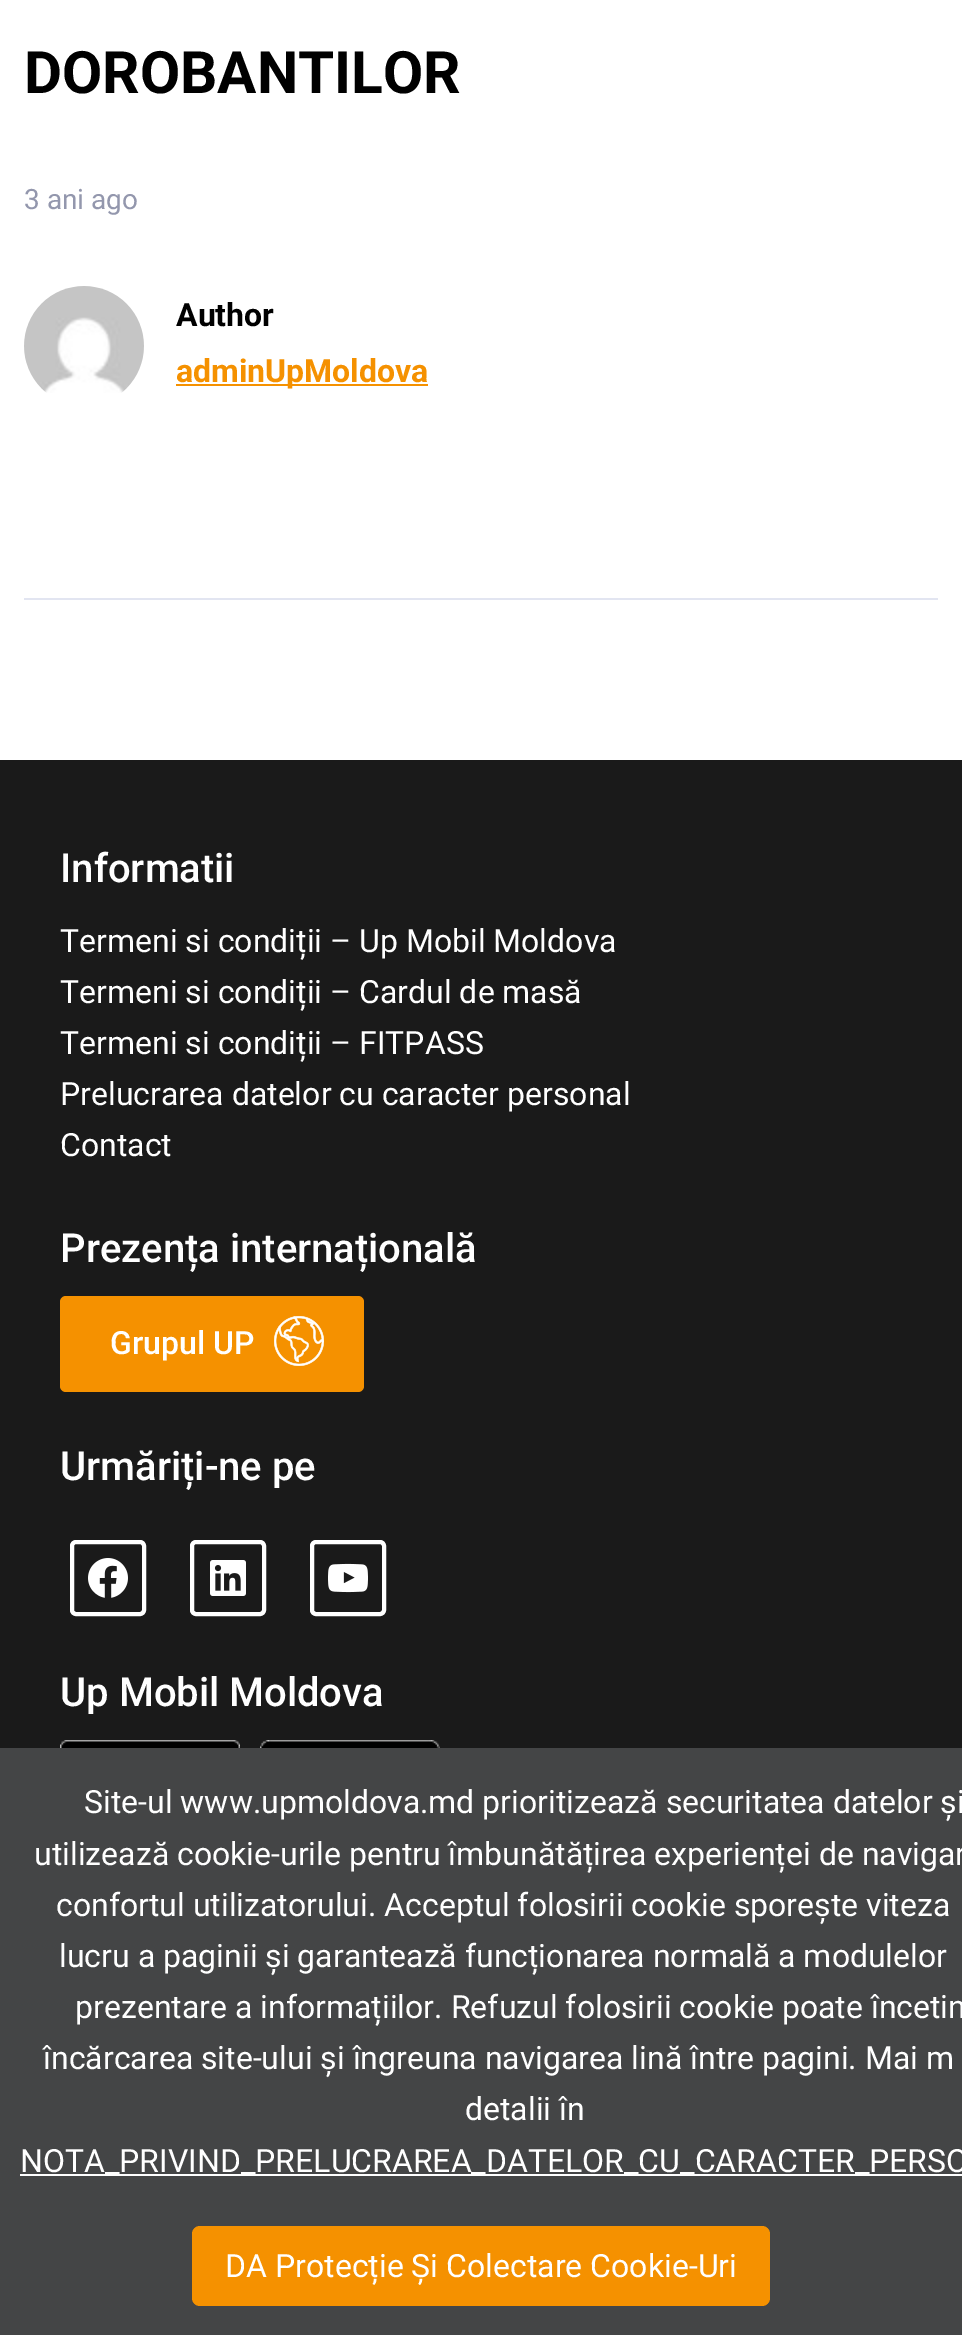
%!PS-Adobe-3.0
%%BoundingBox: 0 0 962 2335
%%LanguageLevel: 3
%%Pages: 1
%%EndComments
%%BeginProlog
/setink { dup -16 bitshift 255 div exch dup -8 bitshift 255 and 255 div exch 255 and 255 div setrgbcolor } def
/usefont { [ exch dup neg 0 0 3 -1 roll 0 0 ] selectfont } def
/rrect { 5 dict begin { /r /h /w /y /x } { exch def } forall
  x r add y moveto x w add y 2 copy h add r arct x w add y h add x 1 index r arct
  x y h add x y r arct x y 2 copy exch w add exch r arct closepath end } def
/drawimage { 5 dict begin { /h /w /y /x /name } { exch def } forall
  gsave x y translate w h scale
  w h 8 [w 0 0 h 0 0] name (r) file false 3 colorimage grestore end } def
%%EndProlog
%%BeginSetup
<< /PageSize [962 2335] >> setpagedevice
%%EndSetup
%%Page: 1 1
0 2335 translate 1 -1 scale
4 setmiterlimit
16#FFFFFF setink
0 0 962 2335 rectfill
/Roboto-Bold 58.5 usefont
16#000000 setink
24 93 moveto (DOROBANTILOR) show
/Roboto-Regular 28 usefont
16#9397AD setink
24 209 moveto (3 ani ago) show
(img1.raw) 24 286 120 107 drawimage
/Roboto-Bold 32 usefont
16#000000 setink
176 326 moveto (Author) show
16#F59100 setink
176 384 252 2 rectfill
176 382 moveto (adminUpMoldova) show
16#E2E5F1 setink
24 598 914 2 rectfill
16#1A1A1A setink
0 760 962 988 rectfill
/Roboto-Medium 40 usefont
16#FFFFFF setink
60 882 moveto (Informatii) show
/Roboto-Regular 32 usefont
[
    [(Termeni si condiții – Up Mobil Moldova) 60 952]
    [(Termeni si condiții – Cardul de masă) 60 1003]
    [(Termeni si condiții – FITPASS) 60 1054]
    [(Prelucrarea datelor cu caracter personal) 60 1105]
    [(Contact) 60 1156]
] { aload pop moveto show } forall
/Roboto-Medium 40 usefont
60 1262 moveto (Prezența internațională) show
16#F59100 setink
60 1296 304 96 6 rrect fill
/Roboto-Medium 32 usefont
16#FFFFFF setink
110 1354 moveto (Grupul UP) show
(img2.raw) 274 1316 50 50 drawimage
/Roboto-Medium 40 usefont
60 1480 moveto (Urmăriți-ne pe) show
4 setlinewidth
72 1542 72 72 4 rrect stroke
(img3.raw) 88 1558 40 40 drawimage
192 1542 72 72 4 rrect stroke
(img4.raw) 210 1560 36 36 drawimage
312 1542 72 72 4 rrect stroke
(img5.raw) 328 1563 40 30 drawimage
60 1706 moveto (Up Mobil Moldova) show
(img6.raw) 60 1740 180 8 drawimage
(img7.raw) 260 1740 180 8 drawimage
16#444546 setink
0 1748 962 587 rectfill
/Roboto-Regular 32 usefont
16#FFFFFF setink
[
    [(Site-ul www.upmoldova.md prioritizează securitatea datelor și) 84 1813]
    [(utilizează cookie-urile pentru îmbunătățirea experienței de navigar) 34 1865]
    [(confortul utilizatorului. Acceptul folosirii cookie sporește viteza) 56 1916]
    [(lucru a paginii și garantează funcționarea normală a modulelor) 59 1967]
    [(prezentare a informațiilor. Refuzul folosirii cookie poate încetin) 75 2018]
    [(încărcarea site-ului și îngreuna navigarea lină între pagini. Mai m) 43 2069]
    [(detalii în) 465 2120]
] { aload pop moveto show } forall
20 2174 942 2 rectfill
20 2172 moveto (NOTA_PRIVIND_PRELUCRAREA_DATELOR_CU_CARACTER_PERSO) show
16#F59100 setink
192 2226 578 80 8 rrect fill
16#FFFFFF setink
225 2277 moveto (DA Protecție Și Colectare Cookie-Uri) show
showpage
%%EOF
